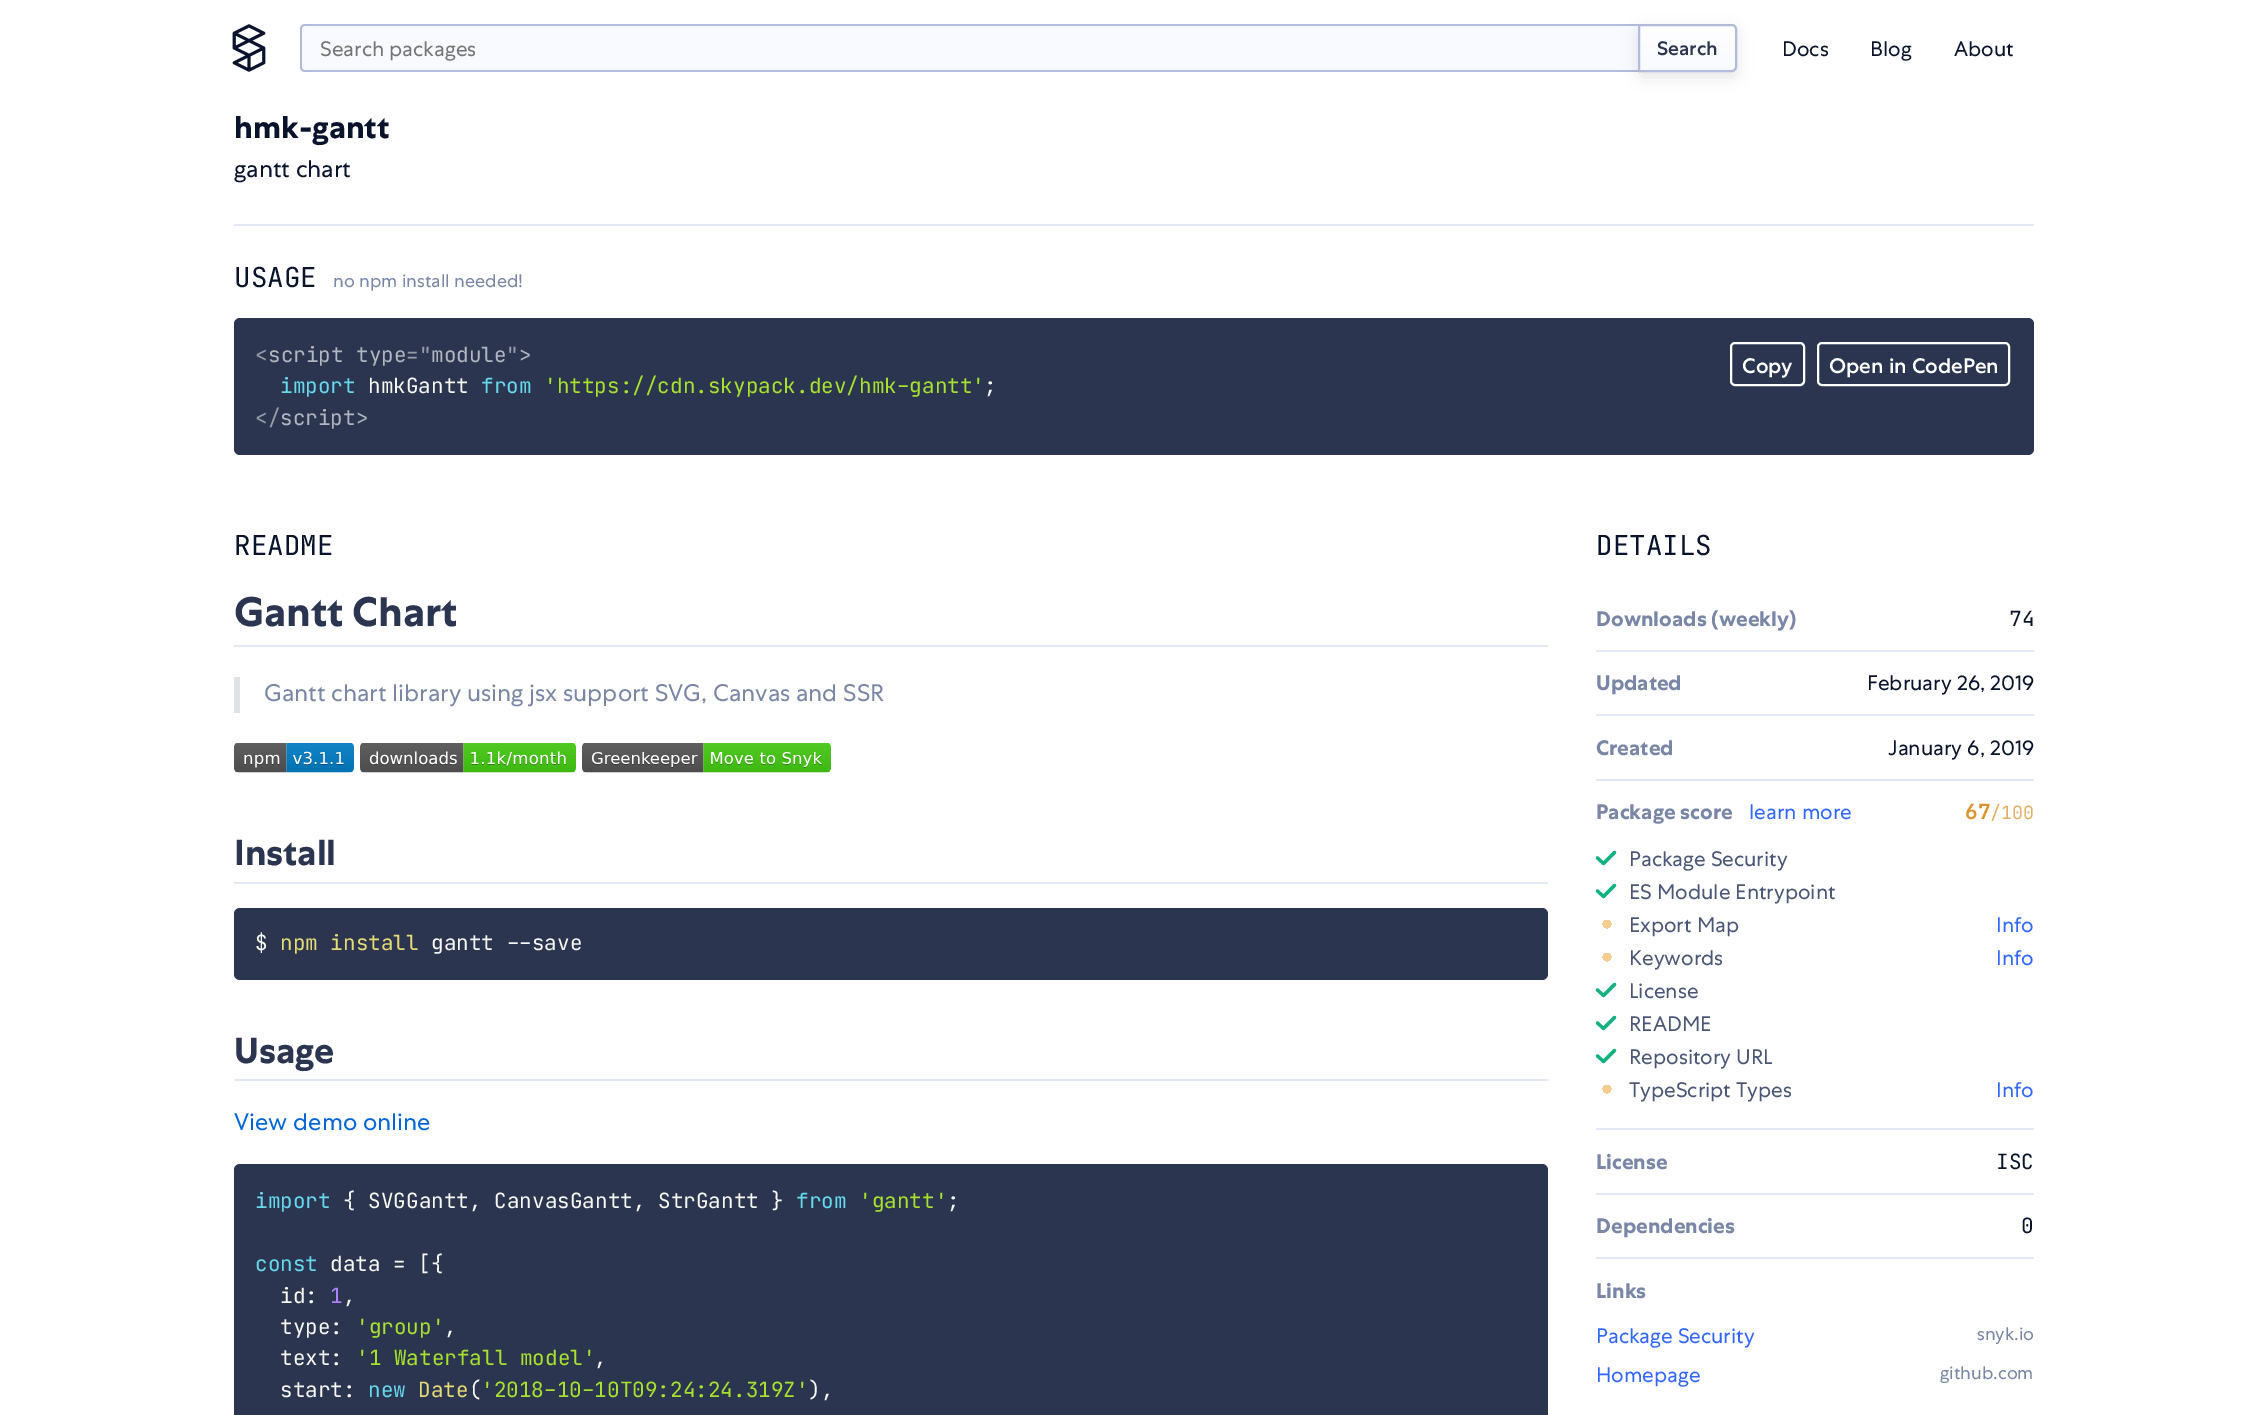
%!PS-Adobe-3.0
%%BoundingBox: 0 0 2268 1415
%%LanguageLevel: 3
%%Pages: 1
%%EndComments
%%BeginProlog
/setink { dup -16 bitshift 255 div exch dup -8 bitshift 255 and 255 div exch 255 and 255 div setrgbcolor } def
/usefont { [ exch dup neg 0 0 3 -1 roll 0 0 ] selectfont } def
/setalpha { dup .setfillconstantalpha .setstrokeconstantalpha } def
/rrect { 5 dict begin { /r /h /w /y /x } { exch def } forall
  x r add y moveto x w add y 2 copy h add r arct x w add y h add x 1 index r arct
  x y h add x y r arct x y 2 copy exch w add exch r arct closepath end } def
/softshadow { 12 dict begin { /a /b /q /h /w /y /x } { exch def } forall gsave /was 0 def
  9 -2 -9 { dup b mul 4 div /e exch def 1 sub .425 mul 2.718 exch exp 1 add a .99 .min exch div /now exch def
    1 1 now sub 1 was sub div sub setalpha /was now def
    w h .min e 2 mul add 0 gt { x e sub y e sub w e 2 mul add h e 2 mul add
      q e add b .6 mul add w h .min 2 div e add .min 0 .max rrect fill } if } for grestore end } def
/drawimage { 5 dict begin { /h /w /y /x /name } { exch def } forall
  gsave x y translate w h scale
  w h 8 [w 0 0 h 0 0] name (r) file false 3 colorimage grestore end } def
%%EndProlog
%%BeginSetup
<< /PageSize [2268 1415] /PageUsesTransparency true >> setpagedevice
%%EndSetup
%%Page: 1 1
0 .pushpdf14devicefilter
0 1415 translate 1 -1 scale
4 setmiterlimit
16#FFFFFF setink
0 0 2268 1415 rectfill
(img1.raw) 232 24 34 48 drawimage
16#F9FAFF setink
305 24 moveto 1638 24 lineto 1638 72 lineto 305 72 lineto 302 72 300 70 300 67 curveto 300 29 lineto 300 26 302 24 305 24 curveto closepath fill
16#B2BCDA setink
305 24 moveto 1638 24 lineto 1638 72 lineto 305 72 lineto 302 72 300 70 300 67 curveto 300 29 lineto 300 26 302 24 305 24 curveto closepath 305 26 moveto 1638 26 lineto 1638 70 lineto 305 70 lineto 303 70 302 69 302 67 curveto 302 29 lineto 302 27 303 26 305 26 curveto closepath eofill
/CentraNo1-Regular 21 usefont
16#757575 setink
320 56 moveto (Search packages) show
16#000000 setink
1638 29 99 48 5 7.5 0.1 softshadow
gsave 1639 25 moveto 1732 25 lineto 1734 25 1736 27 1736 29 curveto 1736 67 lineto 1736 69 1734 71 1732 71 curveto 1639 71 lineto closepath clip newpath
<< /ShadingType 2 /ColorSpace /DeviceRGB /Coords [1688 24 1688 72] /Extend [true true] /Function << /FunctionType 2 /Domain [0 1] /C0 [1 1 1] /C1 [0.976 0.98 1] /N 1 >> >> shfill grestore
16#B2BCDA setink
2 setlinewidth
1639 25 moveto 1732 25 lineto 1734 25 1736 27 1736 29 curveto 1736 67 lineto 1736 69 1734 71 1732 71 curveto 1639 71 lineto closepath stroke
/CentraNo1-Medium 19.5 usefont
16#2B354F setink
1657 55 moveto (Search) show
/CentraNo1-Regular 21 usefont
16#09132B setink
[
    [(Docs) 1782 56]
    [(Blog) 1870 56]
    [(About) 1954 56]
] { aload pop moveto show } forall
16#E3E8F8 setink
234 224 1800 2 rectfill
/CentraNo1-Bold 31.5 usefont
16#09132B setink
234 138 moveto (hmk-gantt) show
/CentraNo1-Regular 24 usefont
234 177 moveto (gantt chart) show
/JetBrainsMono-Regular 27.5 usefont
234 287 moveto (USAGE) show
/CentraNo1-Regular 18.25 usefont
16#7986A5 setink
333 287 moveto (no npm install needed!) show
16#2B354F setink
234 318 1800 137 6 rrect fill
/JetBrainsMono-Regular 21 usefont
16#B3B6C0 setink
268 362 moveto (script type) show
16#989CA9 setink
406 362 moveto (=") show
16#B3B6C0 setink
431 362 moveto (module >) show
16#989CA9 setink
255 362 moveto (<) show
506 362 moveto (") show
16#66D9EF setink
280 393 moveto (import) show
16#F8F8F2 setink
368 393 moveto (hmkGantt) show
16#66D9EF setink
481 393 moveto (from) show
16#A6E22E setink
544 393 moveto ('https://cdn.skypack.dev/hmk-gantt') show
16#F8F8F2 setink
984 393 moveto (;) show
16#989CA9 setink
255 425 moveto (</) show
16#B3B6C0 setink
280 425 moveto (script>) show
16#FFFFFF setink
1731 343 73 42 4 rrect stroke
/CentraNo1-Medium 21 usefont
1742 373 moveto (Copy) show
1818 343 191 42 4 rrect stroke
1829 373 moveto (Open in CodePen) show
/JetBrainsMono-Regular 27.5 usefont
16#09132B setink
234 555 moveto (README) show
16#E3E8F8 setink
234 645 1314 2 rectfill
/CentraNo1-Bold 41.25 usefont
16#2B354F setink
234 626 moveto (Gantt Chart) show
16#DFE2E5 setink
234 677 6 36 rectfill
/CentraNo1-Regular 24 usefont
16#7986A5 setink
264 701 moveto (Gantt chart library using jsx support SVG, Canvas and SSR) show
(img2.raw) 234 743 120 30 drawimage
(img3.raw) 360 743 216 30 drawimage
(img4.raw) 582 743 249 30 drawimage
16#E3E8F8 setink
234 882 1314 2 rectfill
/CentraNo1-Bold 36 usefont
16#2B354F setink
234 865 moveto (Install) show
234 908 1314 72 6 rrect fill
/JetBrainsMono-Regular 21 usefont
16#F8F8F2 setink
255 950 moveto ($) show
16#E6DB74 setink
280 950 moveto (npm install) show
16#F8F8F2 setink
431 950 moveto (gantt --save) show
16#E3E8F8 setink
234 1079 1314 2 rectfill
/CentraNo1-Bold 36 usefont
16#2B354F setink
234 1063 moveto (Usage) show
/CentraNo1-Regular 24 usefont
16#0366D6 setink
234 1130 moveto (View demo online) show
16#2B354F setink
234 1164 1314 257 6 rrect fill
/JetBrainsMono-Regular 21 usefont
16#66D9EF setink
255 1208 moveto (import) show
16#F8F8F2 setink
343 1208 moveto ({ SVGGantt, CanvasGantt, StrGantt }) show
16#66D9EF setink
796 1208 moveto (from) show
16#A6E22E setink
859 1208 moveto ('gantt') show
16#F8F8F2 setink
947 1208 moveto (;) show
16#66D9EF setink
255 1271 moveto (const) show
16#F8F8F2 setink
330 1271 moveto (data = [{) show
280 1303 moveto (id:) show
16#AE81FF setink
330 1303 moveto (1) show
16#F8F8F2 setink
343 1303 moveto (,) show
280 1334 moveto (type:) show
16#A6E22E setink
356 1334 moveto ('group') show
16#F8F8F2 setink
444 1334 moveto (,) show
280 1365 moveto (text:) show
16#A6E22E setink
356 1365 moveto ('1 Waterfall model') show
16#F8F8F2 setink
594 1365 moveto (,) show
280 1397 moveto (start:) show
16#66D9EF setink
368 1397 moveto (new) show
16#E6DB74 setink
418 1397 moveto (Date) show
16#F8F8F2 setink
469 1397 moveto (\() show
16#A6E22E setink
481 1397 moveto ('2018-10-10T09:24:24.319Z') show
16#F8F8F2 setink
808 1397 moveto (\),) show
/JetBrainsMono-Regular 27.5 usefont
16#09132B setink
1596 555 moveto (DETAILS) show
/CentraNo1-Bold 21 usefont
16#7986A5 setink
1596 626 moveto (Downloads \(weekly\)) show
/JetBrainsMono-Regular 21 usefont
16#09132B setink
2009 626 moveto (74) show
16#E3E8F8 setink
1596 650 438 2 rectfill
/CentraNo1-Bold 21 usefont
16#7986A5 setink
1596 690 moveto (Updated) show
/CentraNo1-Regular 21 usefont
16#09132B setink
1867 690 moveto (February 26, 2019) show
16#E3E8F8 setink
1596 714 438 2 rectfill
/CentraNo1-Bold 21 usefont
16#7986A5 setink
1596 755 moveto (Created) show
/CentraNo1-Regular 21 usefont
16#09132B setink
1888 755 moveto (January 6, 2019) show
16#E3E8F8 setink
1596 779 438 2 rectfill
/CentraNo1-Bold 21 usefont
16#7986A5 setink
1596 819 moveto (Package score) show
/CentraNo1-Regular 21 usefont
16#3167FF setink
1749 819 moveto (learn more) show
/JetBrainsMono-Bold 21 usefont
16#D89530 setink
1965 819 moveto (67) show
/JetBrainsMono-Regular 18.25 usefont
16#E2B064 setink
1990 819 moveto (/100) show
16#14B081 setink
3.2 setlinewidth
1 setlinecap
1 setlinejoin
1597.5 858 moveto 1603.5 863.5 lineto 1614.5 852.5 lineto 1597.5 891 moveto 1603.5 896.5 lineto 1614.5 885.5 lineto stroke
/CentraNo1-Regular 21 usefont
16#495675 setink
1629 866 moveto (Package Security) show
1629 899 moveto (ES Module Entrypoint) show
gsave 1602 920 moveto 1612 920 lineto 1612 929 lineto 1602 929 lineto closepath clip newpath 1607 924 translate 7.4 7.4 scale
<< /ShadingType 3 /ColorSpace /DeviceRGB /Coords [0 0 0 0 0 1] /Extend [true true] /Function << /FunctionType 3 /Domain [0 1] /Functions [<< /FunctionType 2 /Domain [0 1] /C0 [0.957 0.804 0.573] /C1 [0.957 0.804 0.573] /N 1 >> << /FunctionType 2 /Domain [0 1] /C0 [1 1 1] /C1 [1 1 1] /N 1 >>] /Bounds [0.62] /Encode [0 1 0 1] >> >> shfill grestore
1629 932 moveto (Export Map) show
16#3167FF setink
1996 932 moveto (Info) show
gsave 1602 953 moveto 1612 953 lineto 1612 962 lineto 1602 962 lineto closepath clip newpath 1607 957 translate 7.4 7.4 scale
<< /ShadingType 3 /ColorSpace /DeviceRGB /Coords [0 0 0 0 0 1] /Extend [true true] /Function << /FunctionType 3 /Domain [0 1] /Functions [<< /FunctionType 2 /Domain [0 1] /C0 [0.957 0.804 0.573] /C1 [0.957 0.804 0.573] /N 1 >> << /FunctionType 2 /Domain [0 1] /C0 [1 1 1] /C1 [1 1 1] /N 1 >>] /Bounds [0.62] /Encode [0 1 0 1] >> >> shfill grestore
16#495675 setink
1629 965 moveto (Keywords) show
16#3167FF setink
1996 965 moveto (Info) show
16#14B081 setink
1597.5 990 moveto 1603.5 995.5 lineto 1614.5 984.5 lineto 1597.5 1023 moveto 1603.5 1028.5 lineto 1614.5 1017.5 lineto stroke
16#495675 setink
1629 998 moveto (License) show
1629 1031 moveto (README) show
16#14B081 setink
1597.5 1056 moveto 1603.5 1061.5 lineto 1614.5 1050.5 lineto stroke
16#495675 setink
1629 1064 moveto (Repository URL) show
gsave 1602 1085 moveto 1612 1085 lineto 1612 1094 lineto 1602 1094 lineto closepath clip newpath 1607 1089 translate 7.4 7.4 scale
<< /ShadingType 3 /ColorSpace /DeviceRGB /Coords [0 0 0 0 0 1] /Extend [true true] /Function << /FunctionType 3 /Domain [0 1] /Functions [<< /FunctionType 2 /Domain [0 1] /C0 [0.957 0.804 0.573] /C1 [0.957 0.804 0.573] /N 1 >> << /FunctionType 2 /Domain [0 1] /C0 [1 1 1] /C1 [1 1 1] /N 1 >>] /Bounds [0.62] /Encode [0 1 0 1] >> >> shfill grestore
1629 1097 moveto (TypeScript Types) show
16#3167FF setink
1996 1097 moveto (Info) show
16#E3E8F8 setink
1596 1128 438 2 rectfill
/CentraNo1-Bold 21 usefont
16#7986A5 setink
1596 1169 moveto (License) show
/JetBrainsMono-Regular 21 usefont
16#09132B setink
1996 1169 moveto (ISC) show
16#E3E8F8 setink
1596 1193 438 2 rectfill
/CentraNo1-Bold 21 usefont
16#7986A5 setink
1596 1233 moveto (Dependencies) show
/JetBrainsMono-Regular 21 usefont
16#09132B setink
2021 1233 moveto (0) show
16#E3E8F8 setink
1596 1257 438 2 rectfill
/CentraNo1-Bold 21 usefont
16#7986A5 setink
1596 1298 moveto (Links) show
/CentraNo1-Regular 21 usefont
16#3167FF setink
1596 1343 moveto (Package Security) show
/CentraNo1-Regular 18.25 usefont
16#7986A5 setink
1977 1340 moveto (snyk.io) show
/CentraNo1-Regular 21 usefont
16#3167FF setink
1596 1382 moveto (Homepage) show
/CentraNo1-Regular 18.25 usefont
16#7986A5 setink
1940 1379 moveto (github.com) show
.poppdf14devicefilter showpage
%%EOF
